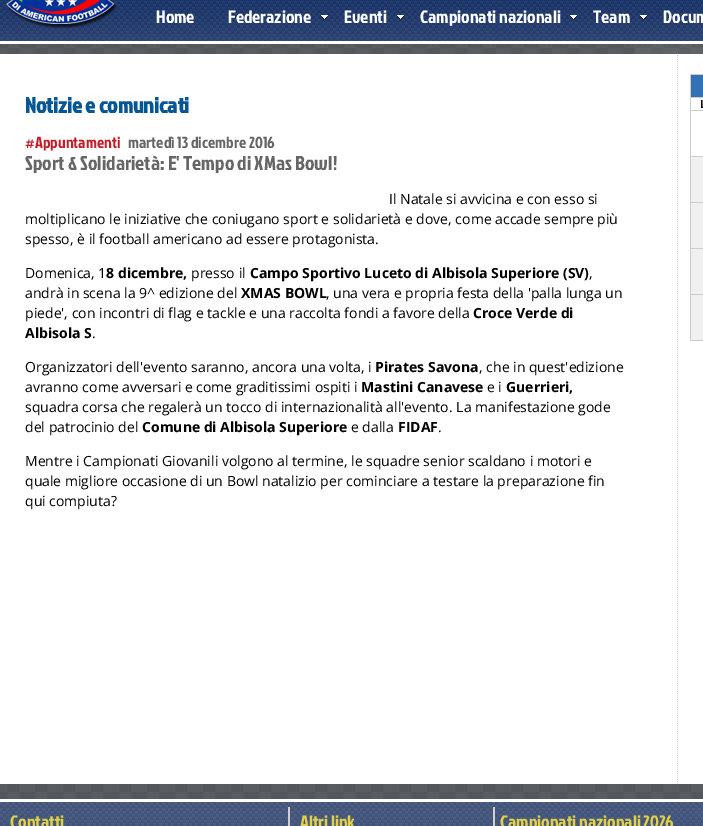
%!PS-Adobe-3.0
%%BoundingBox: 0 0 703 826
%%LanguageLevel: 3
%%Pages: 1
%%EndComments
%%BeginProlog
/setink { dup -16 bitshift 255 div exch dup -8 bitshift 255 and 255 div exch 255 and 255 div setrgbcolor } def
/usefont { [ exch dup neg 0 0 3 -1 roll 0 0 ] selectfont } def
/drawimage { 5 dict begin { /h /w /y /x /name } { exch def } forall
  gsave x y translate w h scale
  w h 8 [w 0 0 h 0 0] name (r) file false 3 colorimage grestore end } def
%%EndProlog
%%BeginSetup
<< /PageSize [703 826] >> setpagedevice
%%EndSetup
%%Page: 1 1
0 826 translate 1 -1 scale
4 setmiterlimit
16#FFFFFF setink
0 0 703 826 rectfill
(img1.raw) 0 44 703 755 drawimage
(img2.raw) 0 0 703 41 drawimage
(img3.raw) 6 0 111 29 drawimage
/JockeyOne-Regular 18 usefont
156 23 moveto (Home) show
228 23 moveto (Federazione) show
(img4.raw) 321 15 8 6 drawimage
344 23 moveto (Eventi) show
(img5.raw) 397 15 8 6 drawimage
420 23 moveto (Campionati nazionali) show
(img6.raw) 570 15 8 6 drawimage
593 23 moveto (Team) show
(img7.raw) 640 15 8 6 drawimage
663 23 moveto (Docum) show
0 54 703 730 rectfill
(img8.raw) 677 55 1 729 drawimage
/JockeyOne-Bold 22 usefont
16#055695 setink
25 113 moveto (Notizie e comunicati) show
/JockeyOne-Regular 16 usefont
16#C51D27 setink
25 148 moveto (#Appuntamenti) show
16#666666 setink
128 148 moveto (martedì 13 dicembre 2016) show
/JockeyOne-Regular 20 usefont
25 170 moveto (Sport & Solidarietà: E' Tempo di XMas Bowl!) show
/OpenSans-Regular 14 usefont
16#000000 setink
[
    [(Il Natale si avvicina e con esso si) 389 204]
    [(moltiplicano le iniziative che coniugano sport e solidarietà e dove, come accade sempre più) 25 224]
    [(spesso, è il football americano ad essere protagonista.) 25 244]
    [(Domenica, 1) 25 278]
] { aload pop moveto show } forall
/OpenSans-Bold 14 usefont
106 278 moveto (8 dicembre,) show
/OpenSans-Regular 14 usefont
191 278 moveto (presso il) show
/OpenSans-Bold 14 usefont
250 278 moveto (Campo Sportivo Luceto di Albisola Superiore \(SV\)) show
/OpenSans-Regular 14 usefont
589 278 moveto (,) show
25 298 moveto (andrà in scena la 9^ edizione del) show
/OpenSans-Bold 14 usefont
241 298 moveto (XMAS BOWL) show
/OpenSans-Regular 14 usefont
326 298 moveto (, una vera e propria festa della 'palla lunga un) show
25 318 moveto (piede', con incontri di flag e tackle e una raccolta fondi a favore della) show
/OpenSans-Bold 14 usefont
473 318 moveto (Croce Verde di) show
25 338 moveto (Albisola S) show
/OpenSans-Regular 14 usefont
92 338 moveto (.) show
25 372 moveto (Organizzatori dell'evento saranno, ancora una volta, i) show
/OpenSans-Bold 14 usefont
375 372 moveto (Pirates Savona) show
/OpenSans-Regular 14 usefont
479 372 moveto (, che in quest'edizione) show
25 392 moveto (avranno come avversari e come graditissimi ospiti i) show
/OpenSans-Bold 14 usefont
361 392 moveto (Mastini Canavese) show
/OpenSans-Regular 14 usefont
487 392 moveto (e i) show
/OpenSans-Bold 14 usefont
506 392 moveto (Guerrieri,) show
/OpenSans-Regular 14 usefont
25 412 moveto (squadra corsa che regalerà un tocco di internazionalità all'evento. La manifestazione gode) show
25 432 moveto (del patrocinio del) show
/OpenSans-Bold 14 usefont
142 432 moveto (Comune di Albisola Superiore) show
/OpenSans-Regular 14 usefont
351 432 moveto (e dalla) show
/OpenSans-Bold 14 usefont
398 432 moveto (FIDAF) show
/OpenSans-Regular 14 usefont
[
    [(.) 438 432]
    [(Mentre i Campionati Giovanili volgono al termine, le squadre senior scaldano i motori e) 25 466]
    [(quale migliore occasione di un Bowl natalizio per cominciare a testare la preparazione fin) 25 486]
    [(qui compiuta?) 25 506]
] { aload pop moveto show } forall
(img9.raw) 690 74 13 267 drawimage
(img10.raw) 0 802 703 24 drawimage
16#D0D0D0 setink
288 807 2 19 rectfill
/JockeyOne-Regular 18 usefont
16#E1D148 setink
10 828 moveto (Contatti) show
300 828 moveto (Altri link) show
16#D0D0D0 setink
493 807 2 19 rectfill
16#E1D148 setink
500 828 moveto (Campionati nazionali 2026) show
showpage
%%EOF
